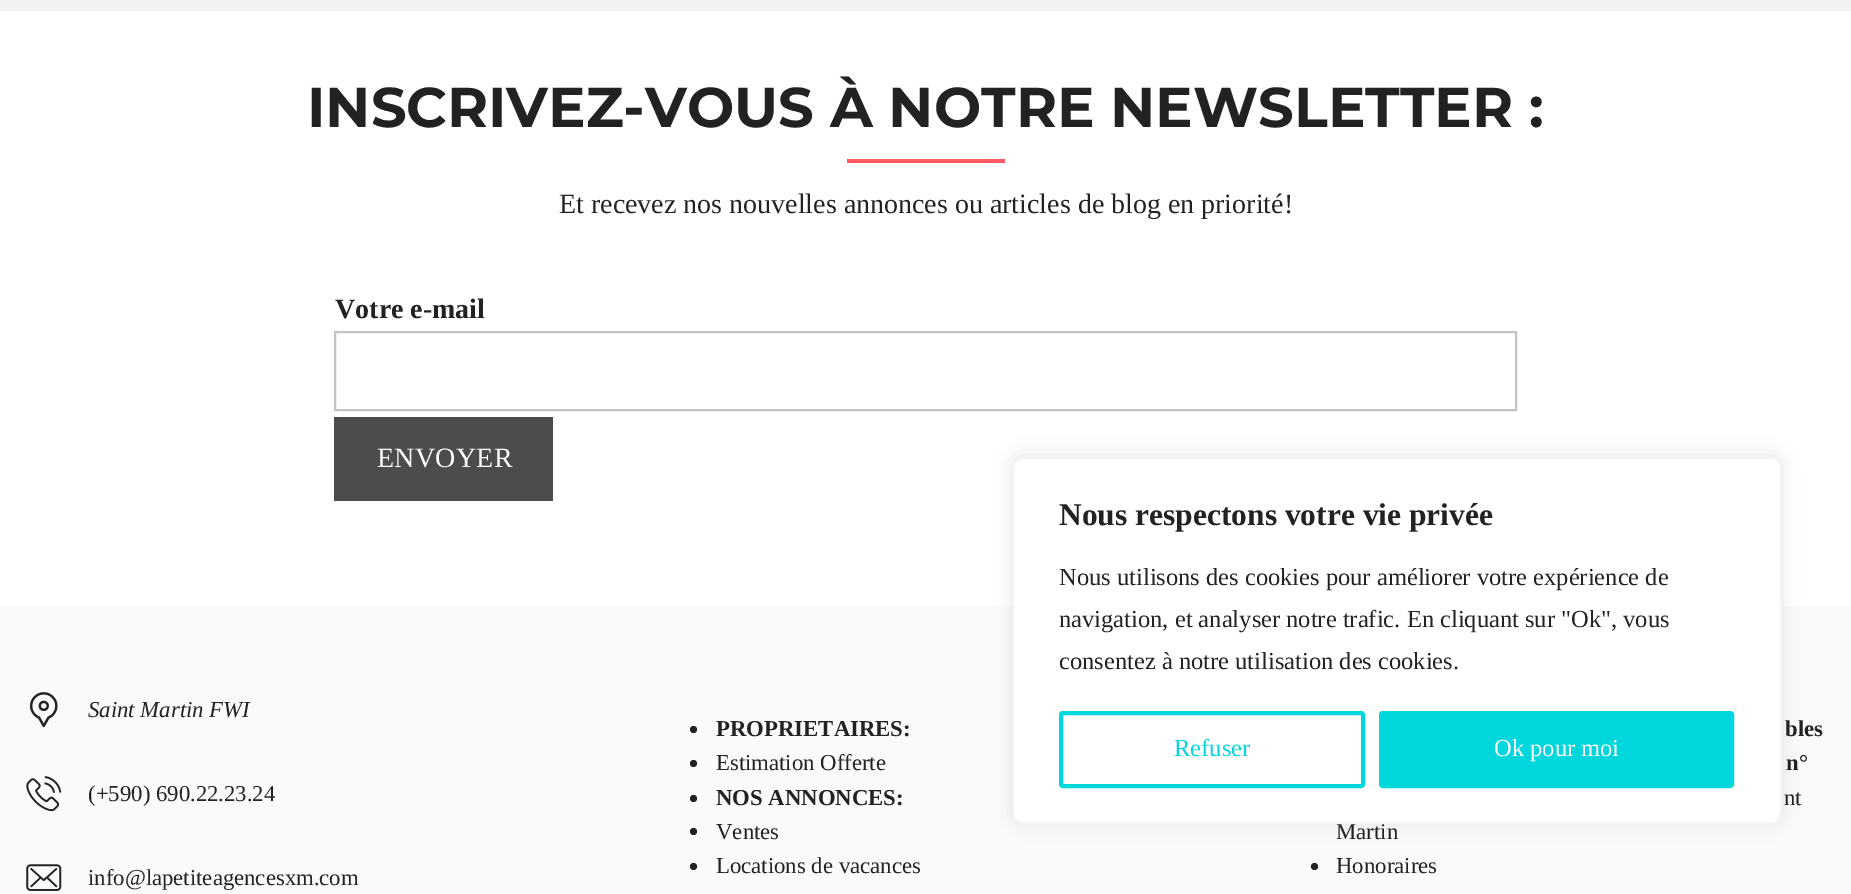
%!PS-Adobe-3.0
%%BoundingBox: 0 0 1851 894
%%LanguageLevel: 3
%%Pages: 1
%%EndComments
%%BeginProlog
/setink { dup -16 bitshift 255 div exch dup -8 bitshift 255 and 255 div exch 255 and 255 div setrgbcolor } def
/usefont { [ exch dup neg 0 0 3 -1 roll 0 0 ] selectfont } def
/setalpha { dup .setfillconstantalpha .setstrokeconstantalpha } def
/disc { newpath 0 360 arc closepath } def
/rrect { 5 dict begin { /r /h /w /y /x } { exch def } forall
  x r add y moveto x w add y 2 copy h add r arct x w add y h add x 1 index r arct
  x y h add x y r arct x y 2 copy exch w add exch r arct closepath end } def
/softshadow { 12 dict begin { /a /b /q /h /w /y /x } { exch def } forall gsave /was 0 def
  9 -2 -9 { dup b mul 4 div /e exch def 1 sub .425 mul 2.718 exch exp 1 add a .99 .min exch div /now exch def
    1 1 now sub 1 was sub div sub setalpha /was now def
    w h .min e 2 mul add 0 gt { x e sub y e sub w e 2 mul add h e 2 mul add
      q e add b .6 mul add w h .min 2 div e add .min 0 .max rrect fill } if } for grestore end } def
/drawimage { 5 dict begin { /h /w /y /x /name } { exch def } forall
  gsave x y translate w h scale
  w h 8 [w 0 0 h 0 0] name (r) file false 3 colorimage grestore end } def
%%EndProlog
%%BeginSetup
<< /PageSize [1851 894] /PageUsesTransparency true >> setpagedevice
%%EndSetup
%%Page: 1 1
0 .pushpdf14devicefilter
0 894 translate 1 -1 scale
4 setmiterlimit
16#FFFFFF setink
0 0 1851 894 rectfill
16#F2F2F2 setink
0 0 1851 11 rectfill
/Montserrat-Bold 56 usefont
16#222222 setink
307 127 moveto (INSCRIVEZ-VOUS À NOTRE NEWSLETTER :) show
16#FF5A60 setink
847 159 158 4 rectfill
/LiberationSerif-Regular 28 usefont
16#222222 setink
559 213 moveto (Et recevez nos nouvelles annonces ou articles de blog en priorité!) show
/LiberationSerif-Bold 28 usefont
335 318 moveto (Votre e-mail) show
16#C3C3C5 setink
2 setlinewidth
335 332 1181 78 rectstroke
16#4C4C4C setink
334 417 219 84 rectfill
/LiberationSerif-Regular 28 usefont
16#FFFFFF setink
377 467 moveto 0.25 0 (ENVOYER) ashow
16#FBF9F9 setink
0 606 1851 288 rectfill
16#ACABAB setink
1012 455 770 368 11 9 0.3 softshadow
/LiberationSerif-Regular 22.75 usefont
16#222222 setink
1336 839 moveto (Martin) show
16#FFFFFF setink
1013 458 768 365 10 rrect gsave fill grestore
16#F4F4F4 setink
stroke
/LiberationSerif-Bold 31.5 usefont
16#222222 setink
1059 525 moveto (Nous respectons votre vie privée) show
/LiberationSerif-Regular 24.5 usefont
[
    [(Nous utilisons des cookies pour améliorer votre expérience de) 1059 585]
    [(navigation, et analyser notre trafic. En cliquant sur "Ok", vous) 1059 627]
    [(consentez à notre utilisation des cookies.) 1059 669]
] { aload pop moveto show } forall
16#00D7DD setink
4 setlinewidth
1061 713 302 73 2 rrect stroke
1174 756 moveto (Refuser) show
1381 713 351 73 2 rrect gsave fill grestore
stroke
16#FFFFFF setink
1494 756 moveto (Ok pour moi) show
(img1.raw) 29 692 29 36 drawimage
/LiberationSerif-Italic 22.75 usefont
16#222222 setink
88 717 moveto (Saint Martin FWI) show
(img2.raw) 26 776 36 36 drawimage
/LiberationSerif-Regular 22.75 usefont
88 801 moveto (\(+590\) 690.22.23.24) show
(img3.raw) 26 864 36 27 drawimage
88 885 moveto (info@lapetiteagencesxm.com) show
693.5 729.5 3.5 disc fill
/LiberationSerif-Bold 22.75 usefont
716 736 moveto (PROPRIETAIRES:) show
693.5 763.5 3.5 disc fill
/LiberationSerif-Regular 22.75 usefont
716 770 moveto (Estimation Offerte) show
693.5 798.5 3.5 disc fill
/LiberationSerif-Bold 22.75 usefont
716 805 moveto (NOS ANNONCES:) show
693.5 831.5 3.5 disc fill
/LiberationSerif-Regular 22.75 usefont
716 839 moveto (Ventes) show
693.5 866.5 3.5 disc fill
716 873 moveto (Locations de vacances) show
/LiberationSerif-Bold 22.75 usefont
1785 736 moveto (bles) show
1786 770 moveto (n°) show
/LiberationSerif-Regular 22.75 usefont
1784 805 moveto (nt) show
1314.5 866.5 3.5 disc fill
1336 873 moveto (Honoraires) show
.poppdf14devicefilter showpage
%%EOF
